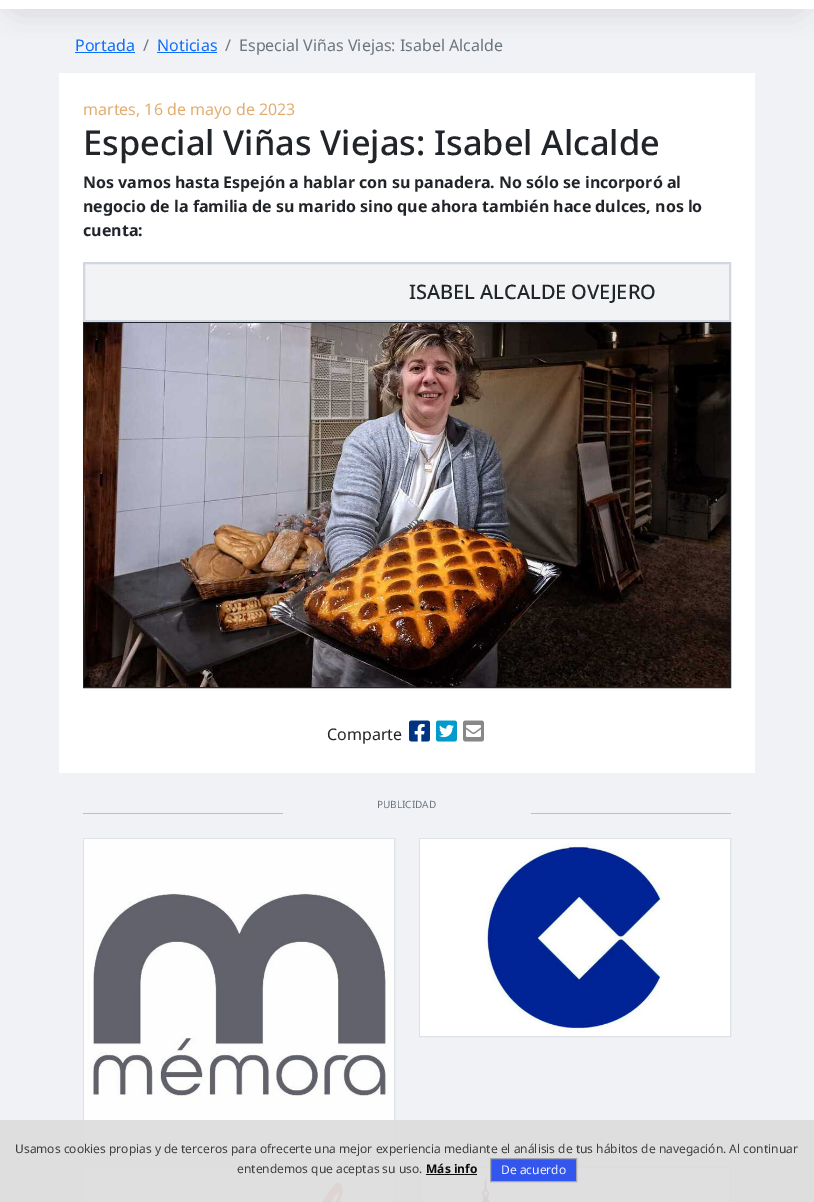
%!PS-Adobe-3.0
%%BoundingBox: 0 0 814 1202
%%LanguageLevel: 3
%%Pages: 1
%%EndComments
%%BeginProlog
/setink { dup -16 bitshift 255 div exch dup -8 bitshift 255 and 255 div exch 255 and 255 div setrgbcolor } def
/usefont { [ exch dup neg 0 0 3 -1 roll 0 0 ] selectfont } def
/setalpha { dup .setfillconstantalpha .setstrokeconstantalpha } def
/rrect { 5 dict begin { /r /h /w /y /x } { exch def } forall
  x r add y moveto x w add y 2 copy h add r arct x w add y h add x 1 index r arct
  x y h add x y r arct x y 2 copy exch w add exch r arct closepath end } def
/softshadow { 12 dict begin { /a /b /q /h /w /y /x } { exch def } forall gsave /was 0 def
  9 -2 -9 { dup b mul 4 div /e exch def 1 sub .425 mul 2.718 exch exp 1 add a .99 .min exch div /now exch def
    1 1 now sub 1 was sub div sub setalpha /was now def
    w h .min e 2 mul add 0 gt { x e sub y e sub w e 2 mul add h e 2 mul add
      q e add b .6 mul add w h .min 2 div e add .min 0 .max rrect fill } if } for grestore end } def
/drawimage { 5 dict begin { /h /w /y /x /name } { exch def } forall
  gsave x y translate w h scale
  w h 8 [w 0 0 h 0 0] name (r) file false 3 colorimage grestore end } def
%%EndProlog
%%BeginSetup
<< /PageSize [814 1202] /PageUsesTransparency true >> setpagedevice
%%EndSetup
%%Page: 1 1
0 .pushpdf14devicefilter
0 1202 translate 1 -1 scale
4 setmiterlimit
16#F0F2F5 setink
0 0 814 1202 rectfill
[
    [0 0 814 9 16#FFFFFF]
    [75 52 60 1 16#0D6EFD]
    [157 52 60 1 16#0D6EFD]
] { aload pop setink rectfill } forall
gsave
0 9 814 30 rectclip
16#000000 setink
5 -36 804 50 25 15 0.1 softshadow
grestore
/NotoSans-Regular 16 usefont
75 51 moveto (Portada) show
16#6C757D setink
143 51 moveto (/) show
16#0D6EFD setink
157 51 moveto (Noticias) show
16#6C757D setink
225 51 moveto (/) show
239 51 moveto (Especial Viñas Viejas: Isabel Alcalde) show
16#FFFFFF setink
59 73 696 700 rectfill
16#E3AD70 setink
83 115 moveto (martes, 16 de mayo de 2023) show
/NotoSans-Medium 34.25 usefont
16#212529 setink
83 155 moveto (Especial Viñas Viejas: Isabel Alcalde) show
/NotoSans-Bold 16 usefont
[
    [(Nos vamos hasta Espejón a hablar con su panadera. No sólo se incorporó al) 83 188]
    [(negocio de la familia de su marido sino que ahora también hace dulces, nos lo) 83 212]
    [(cuenta:) 83 236]
] { aload pop moveto show } forall
16#F1F3F4 setink
84 263 moveto 730 263 lineto 730 321 lineto 84 321 lineto closepath gsave fill grestore
16#D1D6E0 setink
2 setlinewidth
stroke
/NotoSans-Medium 20 usefont
16#212529 setink
409 299 moveto (ISABEL ALCALDE OVEJERO) show
1 setlinewidth
83.5 322.5 647 365 rectstroke
(img1.raw) 84 323 646 364 drawimage
/NotoSans-Regular 16 usefont
327 740 moveto (Comparte) show
(img2.raw) 409 720 21 22 drawimage
(img3.raw) 436 720 21 22 drawimage
(img4.raw) 463 720 21 22 drawimage
/NotoSans-Regular 10 usefont
16#6C757D setink
377 808 moveto (PUBLICIDAD) show
16#BCBFC2 setink
83 813 200 1 rectfill
531 813 200 1 rectfill
16#DEE2E6 setink
83.5 838.5 311 311 rectstroke
(img5.raw) 84 839 310 310 drawimage
419.5 838.5 311 198 rectstroke
(img6.raw) 420 839 310 197 drawimage
83.5 1166.5 311 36 rectstroke
(img7.raw) 84 1167 310 35 drawimage
419.5 1166.5 311 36 rectstroke
(img8.raw) 420 1167 310 35 drawimage
0.95 setalpha
16#DDDDDD setink
0 1120 814 82 rectfill
/NotoSans-Regular 12 usefont
1 setalpha
16#3C3C3C setink
15 1153 moveto (Usamos cookies propias y de terceros para ofrecerte una mejor experiencia mediante el análisis de tus hábitos de navegación. Al continuar) show
237 1173 moveto (entendemos que aceptas su uso.) show
/NotoSans-Bold 12 usefont
16#0B0B0B setink
426 1173 moveto (Más info) show
16#0D0D0D setink
426 1174 51 1 rectfill
0.95 setalpha
16#2A4FEF setink
490.5 1158.5 moveto 576.5 1158.5 lineto 576.5 1181.5 lineto 490.5 1181.5 lineto closepath fill
1 setalpha
16#A4A6AD setink
490.5 1158.5 moveto 576.5 1158.5 lineto 576.5 1181.5 lineto 490.5 1181.5 lineto closepath stroke
/NotoSans-Regular 12 usefont
16#F5F7FE setink
501 1174 moveto (De acuerdo) show
.poppdf14devicefilter showpage
%%EOF
